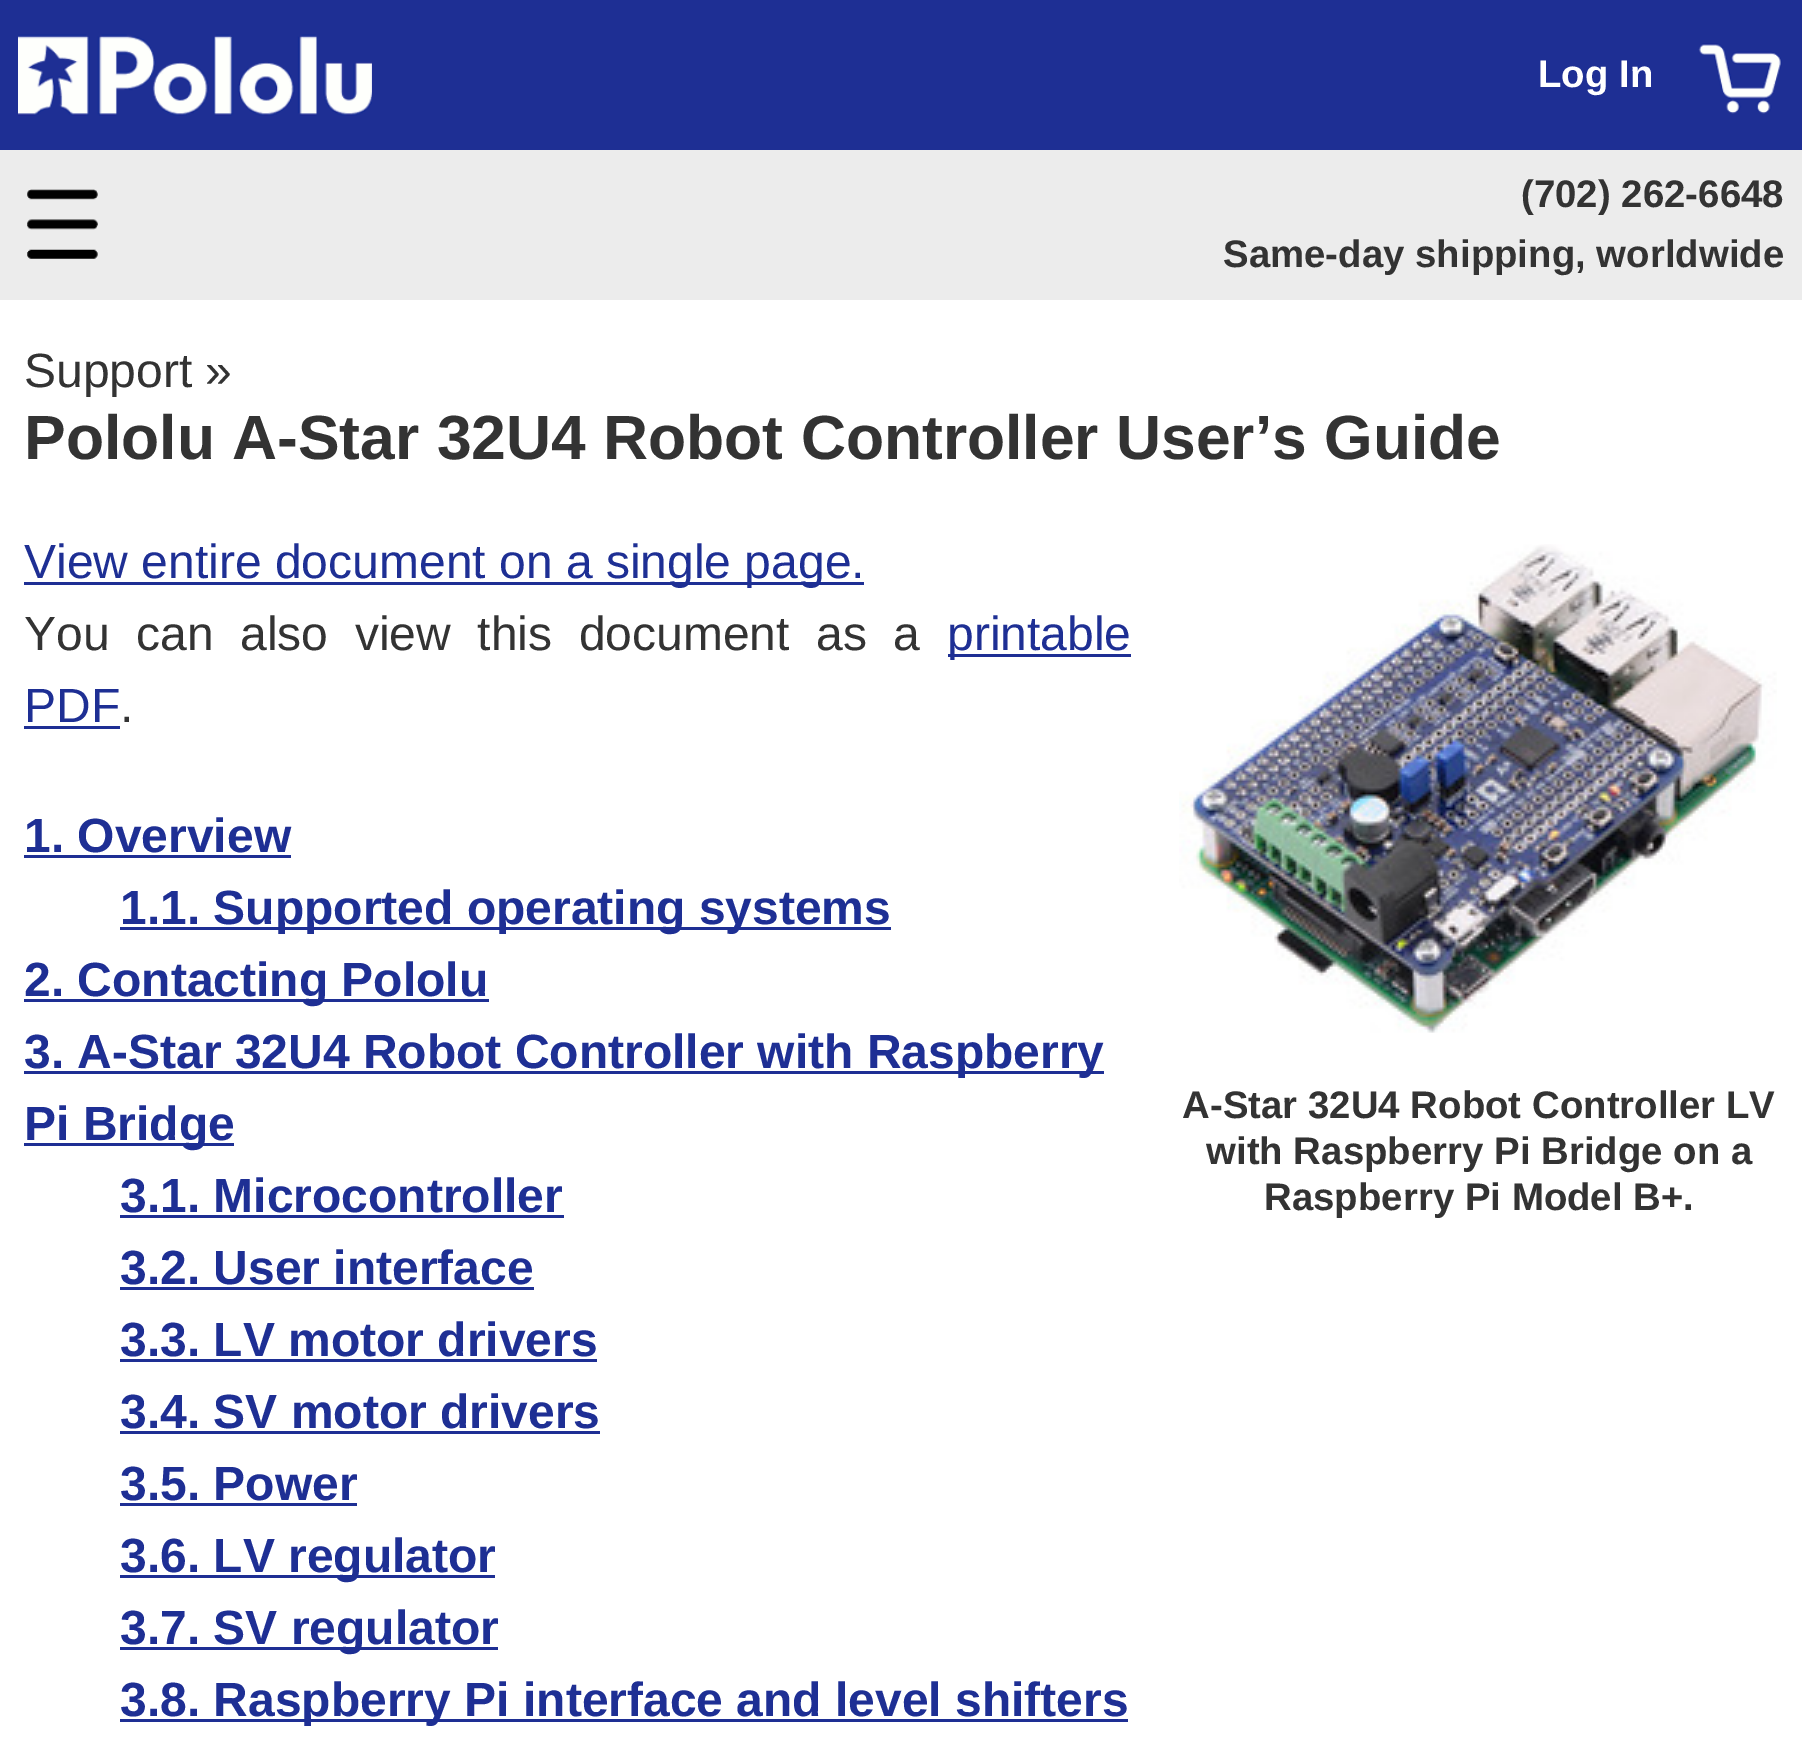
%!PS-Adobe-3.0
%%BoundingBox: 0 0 1802 1744
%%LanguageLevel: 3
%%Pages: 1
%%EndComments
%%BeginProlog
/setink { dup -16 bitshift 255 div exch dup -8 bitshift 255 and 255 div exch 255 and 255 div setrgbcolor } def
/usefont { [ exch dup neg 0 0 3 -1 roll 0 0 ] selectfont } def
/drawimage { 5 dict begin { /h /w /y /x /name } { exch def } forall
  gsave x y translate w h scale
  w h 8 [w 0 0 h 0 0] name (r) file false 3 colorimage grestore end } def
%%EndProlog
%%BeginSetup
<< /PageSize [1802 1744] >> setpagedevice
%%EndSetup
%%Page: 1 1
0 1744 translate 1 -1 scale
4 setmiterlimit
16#FFFFFF setink
0 0 1802 1744 rectfill
16#1E2F94 setink
0 0 1802 150 rectfill
(img1.raw) 18 34 354 82 drawimage
/LiberationSans-Bold 38.4 usefont
16#FFFFFF setink
1538 87 moveto (Log In) show
(img2.raw) 1698 43 84 71 drawimage
16#ECECEC setink
0 150 1802 150 rectfill
(img3.raw) 27 189 71 70 drawimage
16#333333 setink
1521 207 moveto (\(702\) 262-6648) show
1223 267 moveto (Same-day shipping, worldwide) show
/LiberationSans-Regular 48 usefont
24 387 moveto (Support ») show
/LiberationSans-Bold 62.4 usefont
24 459 moveto (Pololu A-Star 32U4 Robot Controller User’s Guide) show
16#1E2F94 setink
24 582 840 3 rectfill
/LiberationSans-Regular 48 usefont
24 578 moveto (View entire document on a single page.) show
16#333333 setink
24 650 moveto 13.25 0 32 (You can also view this document as a) widthshow
16#1E2F94 setink
948 654 183 3 rectfill
947 650 moveto (printable) show
24 722 moveto (PDF) show
24 726 96 3 rectfill
16#333333 setink
120 722 moveto (.) show
/LiberationSans-Bold 48 usefont
16#1E2F94 setink
24 852 moveto (1. Overview) show
24 855 267 3 rectfill
120 927 771 3 rectfill
120 924 moveto (1.1. Supported operating systems) show
24 999 465 3 rectfill
24 996 moveto (2. Contacting Pololu) show
24 1071 1080 3 rectfill
24 1068 moveto (3. A-Star 32U4 Robot Controller with Raspberry) show
24 1143 210 3 rectfill
24 1140 moveto (Pi Bridge) show
120 1212 moveto (3.1. Microcontroller) show
120 1215 444 3 rectfill
120 1284 moveto (3.2. User interface) show
120 1287 414 3 rectfill
120 1356 moveto (3.3. LV motor drivers) show
120 1359 477 3 rectfill
120 1428 moveto (3.4. SV motor drivers) show
120 1431 480 3 rectfill
120 1500 moveto (3.5. Power) show
120 1503 237 3 rectfill
120 1575 375 3 rectfill
120 1572 moveto (3.6. LV regulator) show
120 1647 378 3 rectfill
120 1644 moveto (3.7. SV regulator) show
120 1719 1008 3 rectfill
120 1716 moveto (3.8. Raspberry Pi interface and level shifters) show
(img4.raw) 1179 544 598 489 drawimage
/LiberationSans-Bold 38.4 usefont
16#333333 setink
[
    [(A-Star 32U4 Robot Controller LV) 1182 1118]
    [(with Raspberry Pi Bridge on a) 1206 1164]
    [(Raspberry Pi Model B+.) 1264 1210]
] { aload pop moveto show } forall
showpage
%%EOF
